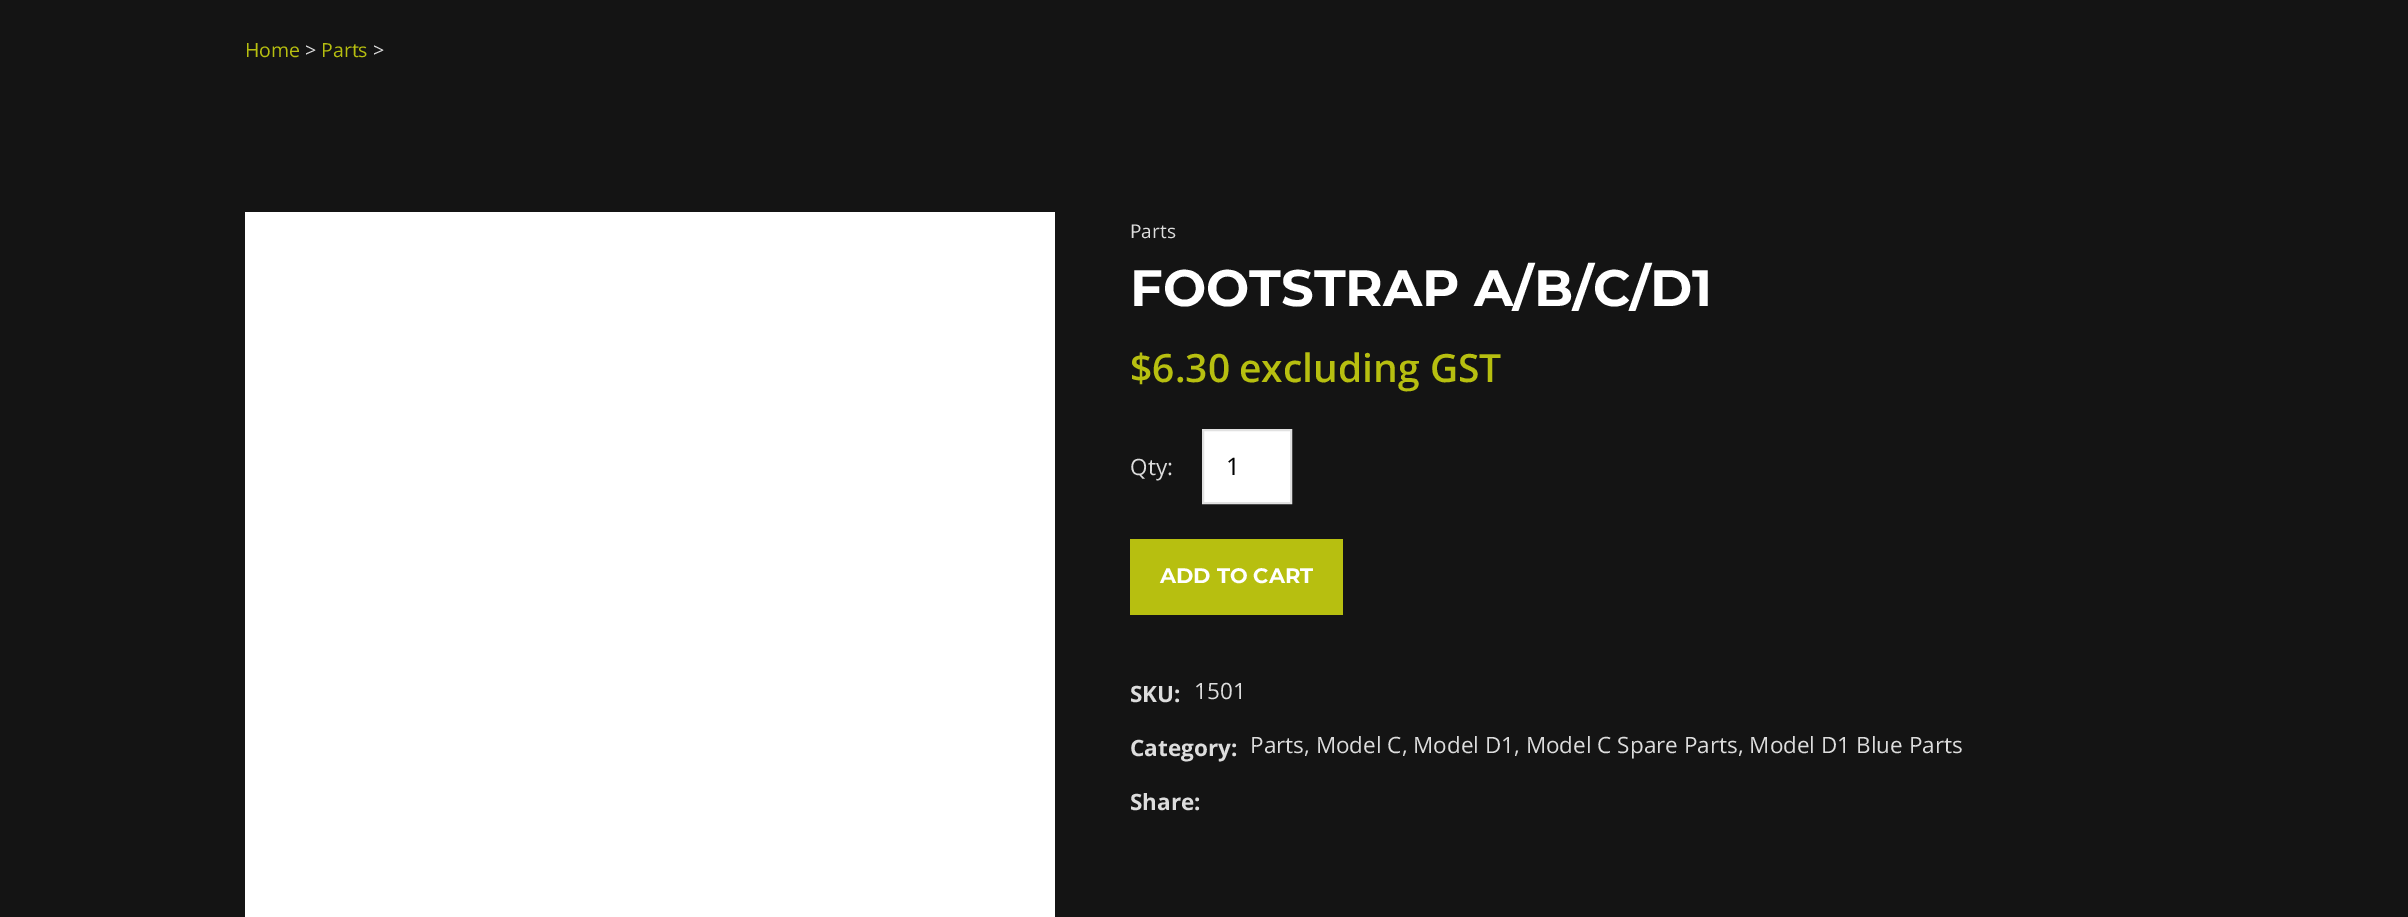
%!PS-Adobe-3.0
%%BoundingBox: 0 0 2408 917
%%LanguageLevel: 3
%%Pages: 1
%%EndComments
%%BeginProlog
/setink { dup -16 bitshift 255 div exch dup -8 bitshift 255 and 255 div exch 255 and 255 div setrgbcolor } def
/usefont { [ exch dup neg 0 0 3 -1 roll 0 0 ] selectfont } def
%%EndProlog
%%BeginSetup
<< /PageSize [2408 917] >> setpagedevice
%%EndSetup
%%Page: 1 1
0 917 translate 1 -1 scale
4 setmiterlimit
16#141414 setink
0 0 2408 917 rectfill
/OpenSans-Regular 19.5 usefont
16#B7BF10 setink
245 57 moveto (Home) show
16#DDDDDD setink
305 57 moveto (>) show
16#B7BF10 setink
321 57 moveto (Parts) show
16#DDDDDD setink
373 57 moveto (>) show
16#FFFFFF setink
245 212 810 705 rectfill
/OpenSans-Regular 19 usefont
16#DDDDDD setink
1130 238 moveto (Parts) show
/Montserrat-Bold 51.25 usefont
16#FFFFFF setink
1130 306 moveto (FOOTSTRAP A/B/C/D1) show
/OpenSans-SemiBold 39 usefont
16#B7BF10 setink
1130 382 moveto ($6.30) show
1239 382 moveto (excluding GST) show
/OpenSans-Regular 22.5 usefont
16#DDDDDD setink
1130 475 moveto (Qty:) show
16#FFFFFF setink
1203 430 moveto 1291 430 lineto 1291 503 lineto 1203 503 lineto closepath gsave fill grestore
16#E1E1E1 setink
2 setlinewidth
stroke
/OpenSans-Regular 24 usefont
16#000000 setink
1226 475 moveto (1) show
16#B7BF10 setink
1130 539 213 76 rectfill
/Montserrat-Bold 21 usefont
16#FFFFFF setink
1160 583 moveto (ADD TO CART) show
/OpenSans-Bold 22.5 usefont
16#DDDDDD setink
1130 702 moveto (SKU:) show
/OpenSans-Regular 22.5 usefont
1194 699 moveto (1501) show
/OpenSans-Bold 22.5 usefont
1130 756 moveto (Category:) show
/OpenSans-Regular 22.5 usefont
1250 753 moveto (Parts, Model C, Model D1, Model C Spare Parts, Model D1 Blue Parts) show
/OpenSans-Bold 22.5 usefont
1130 810 moveto (Share:) show
showpage
%%EOF
